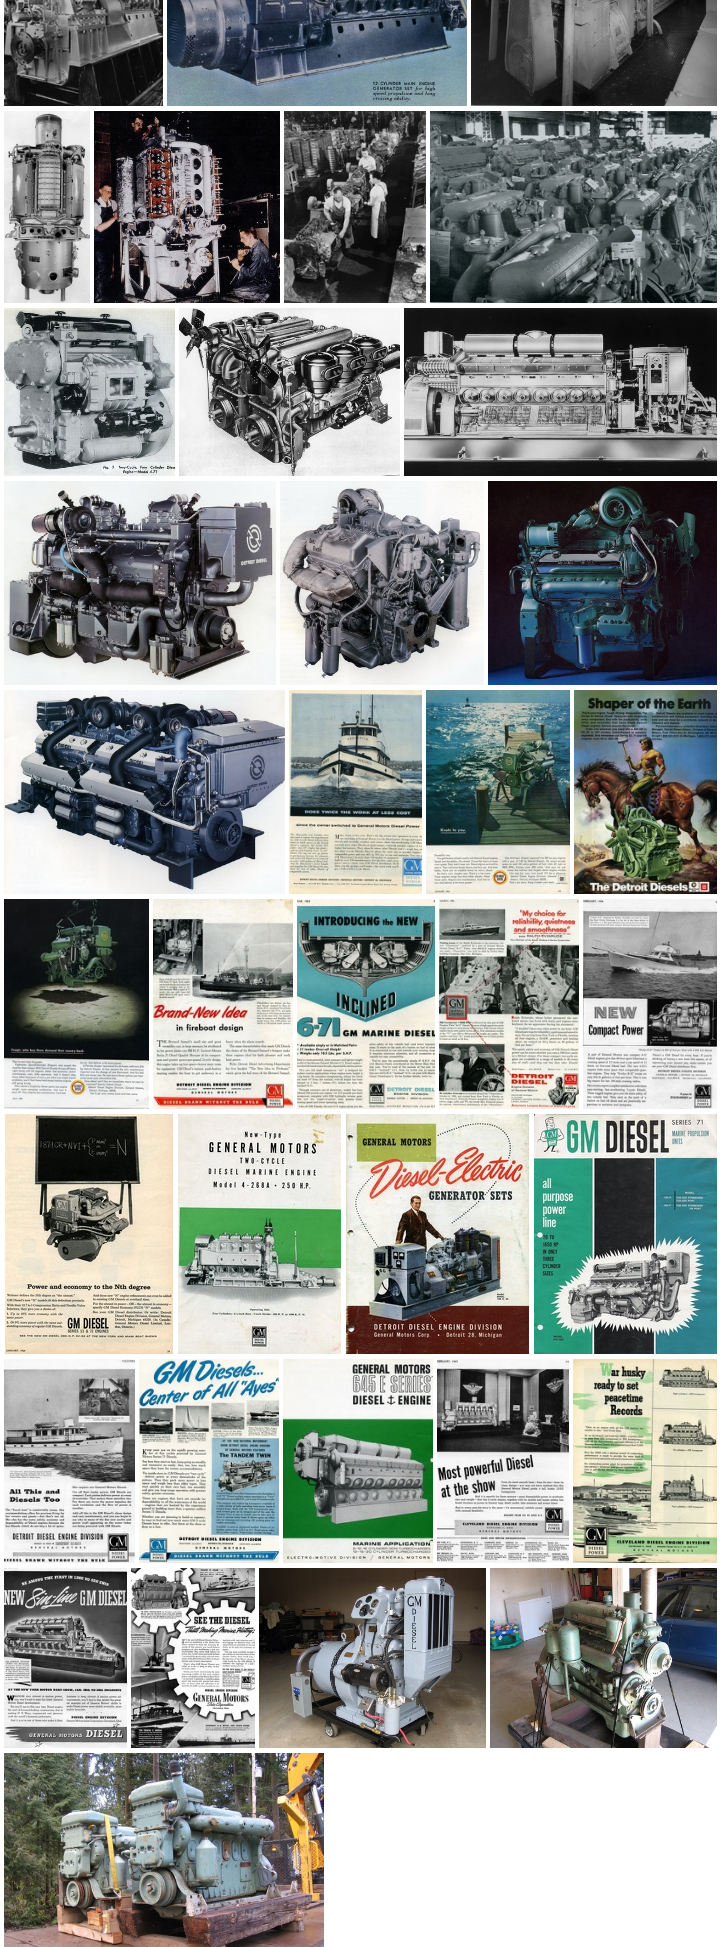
%!PS-Adobe-3.0
%%BoundingBox: 0 0 722 1947
%%LanguageLevel: 3
%%Pages: 1
%%EndComments
%%BeginProlog
/setink { dup -16 bitshift 255 div exch dup -8 bitshift 255 and 255 div exch 255 and 255 div setrgbcolor } def
/drawimage { 5 dict begin { /h /w /y /x /name } { exch def } forall
  gsave x y translate w h scale
  w h 8 [w 0 0 h 0 0] name (r) file false 3 colorimage grestore end } def
%%EndProlog
%%BeginSetup
<< /PageSize [722 1947] >> setpagedevice
%%EndSetup
%%Page: 1 1
0 1947 translate 1 -1 scale
4 setmiterlimit
16#FFFFFF setink
0 0 722 1947 rectfill
(img1.raw) 4 0 159 106 drawimage
(img2.raw) 167 0 300 106 drawimage
(img3.raw) 471 0 246 106 drawimage
(img4.raw) 4 111 86 192 drawimage
(img5.raw) 94 111 186 192 drawimage
(img6.raw) 284 111 142 192 drawimage
(img7.raw) 430 111 287 192 drawimage
(img8.raw) 4 308 171 168 drawimage
(img9.raw) 179 308 221 168 drawimage
(img10.raw) 404 308 313 168 drawimage
(img11.raw) 4 481 272 204 drawimage
(img12.raw) 280 481 204 204 drawimage
(img13.raw) 488 481 229 204 drawimage
(img14.raw) 4 690 281 204 drawimage
(img15.raw) 289 690 133 204 drawimage
(img16.raw) 426 690 144 204 drawimage
(img17.raw) 574 690 143 204 drawimage
(img18.raw) 4 899 145 210 drawimage
(img19.raw) 153 899 140 210 drawimage
(img20.raw) 297 899 138 210 drawimage
(img21.raw) 439 899 140 210 drawimage
(img22.raw) 583 899 134 210 drawimage
(img23.raw) 5 1114 168 240 drawimage
(img24.raw) 178 1114 163 240 drawimage
(img25.raw) 346 1114 183 240 drawimage
(img26.raw) 534 1114 183 240 drawimage
(img27.raw) 4 1359 131 204 drawimage
(img28.raw) 139 1359 140 204 drawimage
(img29.raw) 283 1359 150 204 drawimage
(img30.raw) 437 1359 132 204 drawimage
(img31.raw) 573 1359 144 204 drawimage
(img32.raw) 4 1568 123 180 drawimage
(img33.raw) 131 1568 124 180 drawimage
(img34.raw) 259 1568 227 180 drawimage
(img35.raw) 490 1568 227 180 drawimage
(img36.raw) 4 1753 320 194 drawimage
showpage
%%EOF
